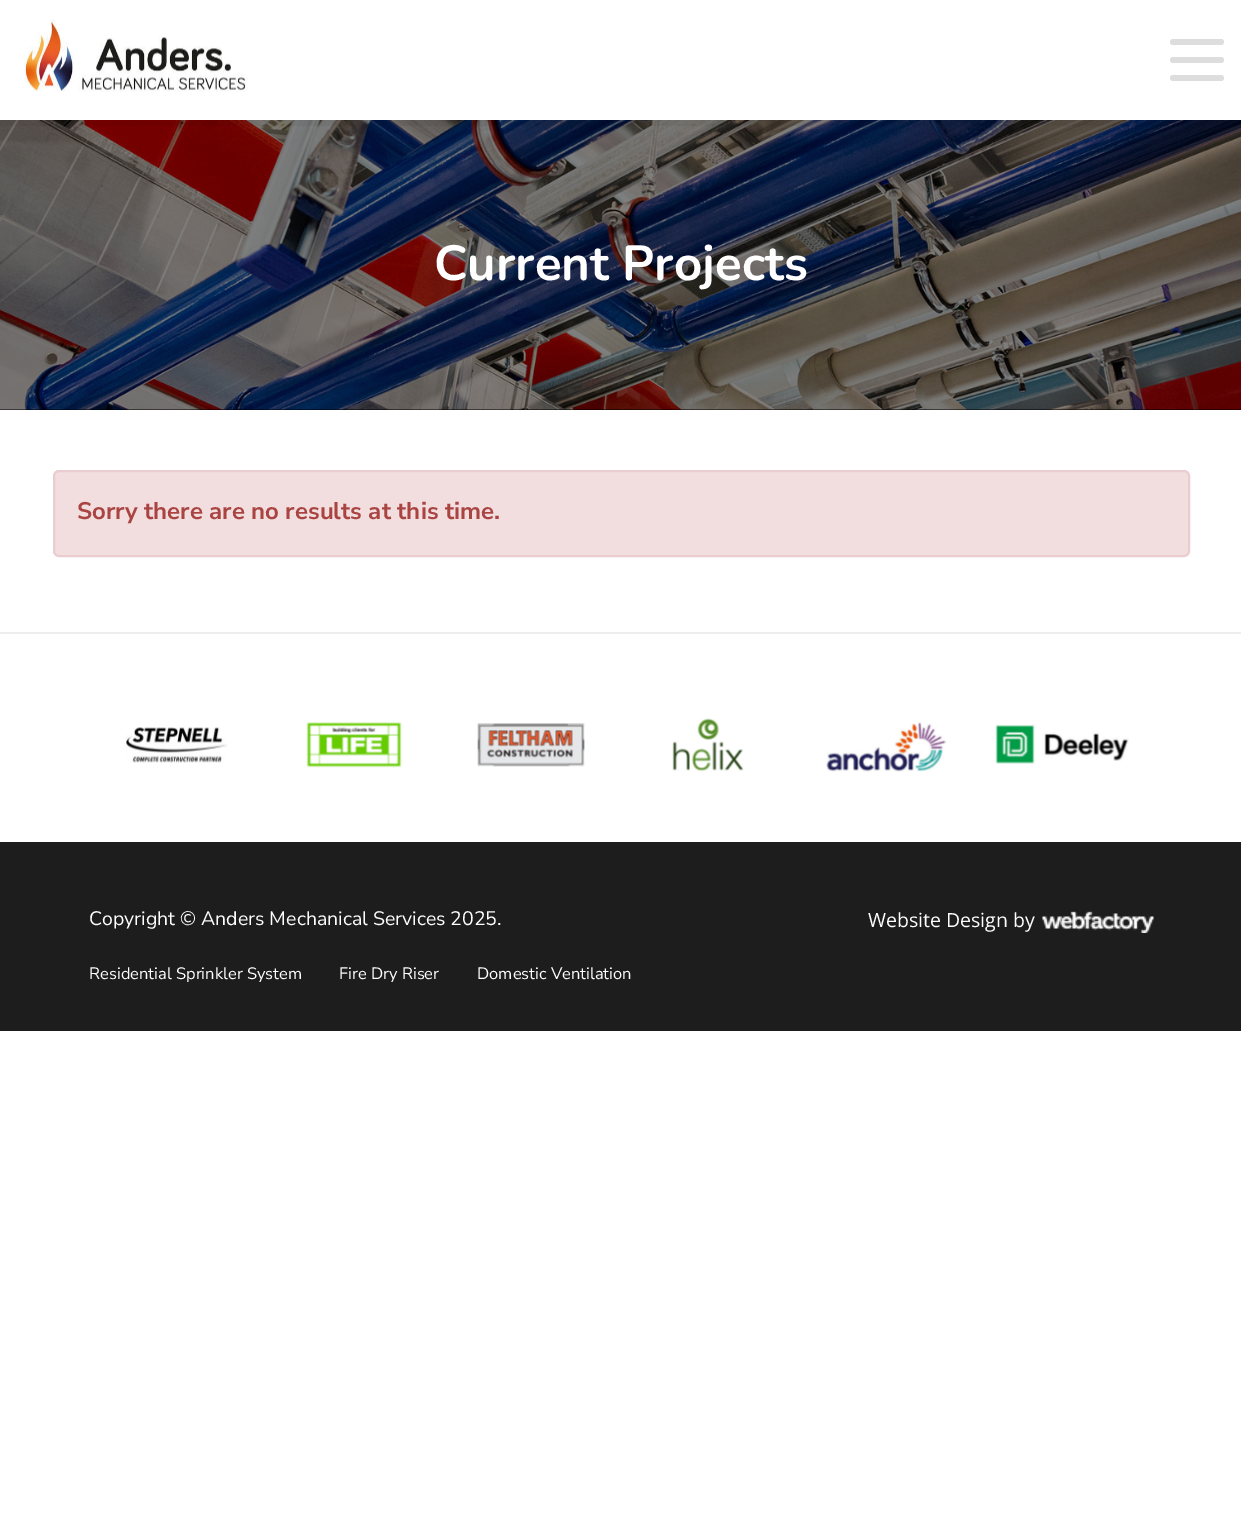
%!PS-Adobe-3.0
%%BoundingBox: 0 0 1241 1534
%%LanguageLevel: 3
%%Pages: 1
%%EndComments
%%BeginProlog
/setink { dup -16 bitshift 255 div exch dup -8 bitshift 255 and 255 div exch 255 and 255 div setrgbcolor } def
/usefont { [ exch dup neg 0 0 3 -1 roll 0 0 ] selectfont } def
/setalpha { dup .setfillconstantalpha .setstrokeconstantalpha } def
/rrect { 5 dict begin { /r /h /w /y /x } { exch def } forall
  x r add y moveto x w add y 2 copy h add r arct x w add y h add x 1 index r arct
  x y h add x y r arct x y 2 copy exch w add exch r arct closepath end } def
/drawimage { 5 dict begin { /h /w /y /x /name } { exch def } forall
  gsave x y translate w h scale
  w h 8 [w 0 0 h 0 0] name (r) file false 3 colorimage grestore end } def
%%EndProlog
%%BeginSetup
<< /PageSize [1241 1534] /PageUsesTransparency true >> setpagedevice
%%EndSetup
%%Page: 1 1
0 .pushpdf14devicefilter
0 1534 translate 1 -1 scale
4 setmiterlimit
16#FFFFFF setink
0 0 1241 1534 rectfill
16#000000 setink
0 120 1241 290 rectfill
(img2.raw) 0 120 1241 290 drawimage
0.05 setalpha
0 120 1183 6 rectfill
1 setalpha
(img1.raw) 24 19 224 73 drawimage
16#DDDDDD setink
1170 39 54 6 3 rrect fill
1170 57 54 6 3 rrect fill
1170 75 54 6 3 rrect fill
/Nunito-Bold 49.25 usefont
16#FFFFFF setink
434 280 moveto (Current Projects) show
16#F2DEDE setink
54 471 1135 85 5 rrect gsave fill grestore
16#EBCCD1 setink
2 setlinewidth
stroke
/NunitoSans-Bold 24 usefont
16#A94442 setink
77 519 moveto (Sorry there are no results at this time.) show
16#1D1D1D setink
0 842 1241 189 rectfill
16#EEEEEE setink
0 632 1241 2 rectfill
(img3.raw) 126 727 102 36 drawimage
(img4.raw) 306 722 96 46 drawimage
(img5.raw) 477 723 108 44 drawimage
(img6.raw) 672 718 72 54 drawimage
(img7.raw) 826 721 121 51 drawimage
(img8.raw) 995 724 134 40 drawimage
/NunitoSans-Regular 19.5 usefont
16#FFFFFF setink
89 925 moveto (Copyright © Anders Mechanical Services 2025.) show
/OpenSans-Regular 19.5 usefont
868 927 moveto (Website Design by) show
(img9.raw) 1042 911 112 22 drawimage
/NunitoSans-Regular 16.5 usefont
[
    [(Residential Sprinkler System) 89 979]
    [(Fire Dry Riser) 339 979]
    [(Domestic Ventilation) 477 979]
] { aload pop moveto show } forall
.poppdf14devicefilter showpage
%%EOF
